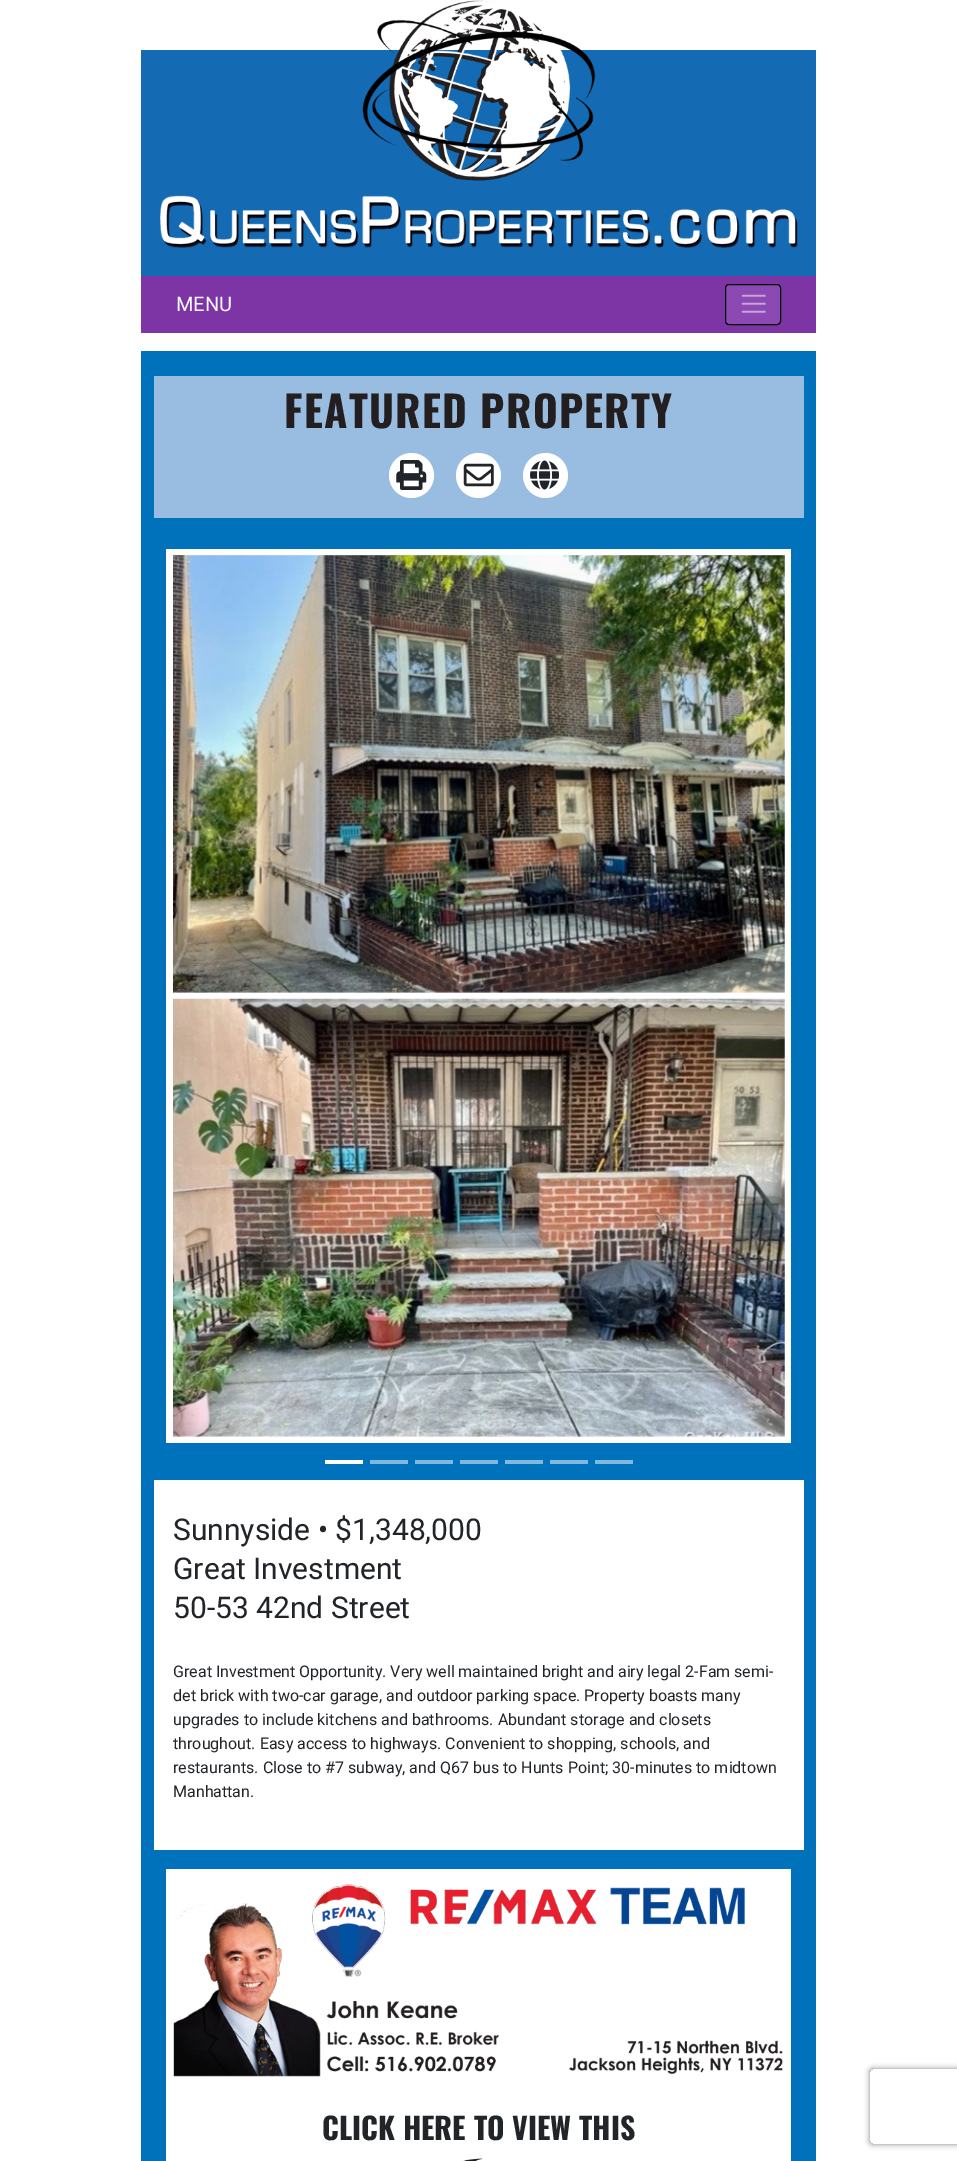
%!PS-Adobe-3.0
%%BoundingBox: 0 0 957 2161
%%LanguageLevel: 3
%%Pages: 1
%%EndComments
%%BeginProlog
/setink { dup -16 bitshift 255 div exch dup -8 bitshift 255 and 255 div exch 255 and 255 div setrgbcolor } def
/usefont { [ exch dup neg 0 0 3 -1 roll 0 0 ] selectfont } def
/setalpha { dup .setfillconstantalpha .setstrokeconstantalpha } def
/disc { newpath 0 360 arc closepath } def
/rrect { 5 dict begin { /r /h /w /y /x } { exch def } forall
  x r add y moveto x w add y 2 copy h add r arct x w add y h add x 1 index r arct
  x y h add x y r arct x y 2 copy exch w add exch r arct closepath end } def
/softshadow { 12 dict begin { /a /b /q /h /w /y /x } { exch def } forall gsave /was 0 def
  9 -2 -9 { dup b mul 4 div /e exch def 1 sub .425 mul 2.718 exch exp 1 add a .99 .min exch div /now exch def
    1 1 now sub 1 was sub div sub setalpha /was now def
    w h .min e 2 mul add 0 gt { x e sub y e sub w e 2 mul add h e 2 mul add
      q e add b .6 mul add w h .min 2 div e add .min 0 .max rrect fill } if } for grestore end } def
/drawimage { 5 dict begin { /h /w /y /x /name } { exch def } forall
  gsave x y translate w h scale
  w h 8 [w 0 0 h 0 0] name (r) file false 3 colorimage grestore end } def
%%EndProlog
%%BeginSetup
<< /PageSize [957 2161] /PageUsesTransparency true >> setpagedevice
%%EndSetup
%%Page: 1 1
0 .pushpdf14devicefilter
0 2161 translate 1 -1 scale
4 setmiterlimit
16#FFFFFF setink
0 0 957 2161 rectfill
16#146AB3 setink
141 50 675 226 rectfill
(img1.raw) 362 0 234 181 drawimage
(img2.raw) 160 195 638 53 drawimage
16#7D35A6 setink
141 276 675 57 rectfill
/Roboto-Regular 20 usefont
16#FFFFFF setink
176 311 moveto (MENU) show
16#8C49B3 setink
725.5 284.5 55 40 3.5 rrect gsave fill grestore
16#000000 setink
stroke
(img3.raw) 741 294 25 19 drawimage
16#0072BB setink
141 351 675 1810 rectfill
16#99BCE1 setink
154 376 650 142 rectfill
/Oswald-Bold 42.5 usefont
16#231F20 setink
284 428 moveto 1.25 0 (FEATURED PROPERTY) ashow
16#FFFFFF setink
411.5 475.5 22.5 disc fill
(img4.raw) 396 460 31 30 drawimage
478.5 475.5 22.5 disc fill
(img5.raw) 463 463 31 24 drawimage
545.5 475.5 22.5 disc fill
(img6.raw) 530 460 30 30 drawimage
166 549 625 894 rectfill
(img7.raw) 173 555 612 438 drawimage
(img8.raw) 173 998 612 439 drawimage
[
    [325 1460 38 4 16#FFFFFF]
    [370 1460 38 4 16#80B9DD]
    [415 1460 38 4 16#80B9DD]
    [460 1460 38 4 16#80B9DD]
    [505 1460 38 4 16#80B9DD]
    [550 1460 38 4 16#80B9DD]
    [595 1460 38 4 16#80B9DD]
    [154 1480 650 370 16#FFFFFF]
] { aload pop setink rectfill } forall
/Roboto-Regular 30 usefont
16#212529 setink
[
    [(Sunnyside • $1,348,000) 173 1540]
    [(Great Investment) 173 1579]
    [(50-53 42nd Street) 173 1618]
] { aload pop moveto show } forall
/Roboto-Regular 16 usefont
[
    [(Great Investment Opportunity. Very well maintained bright and airy legal 2-Fam semi-) 173 1677]
    [(det brick with two-car garage, and outdoor parking space. Property boasts many) 173 1701]
    [(upgrades to include kitchens and bathrooms. Abundant storage and closets) 173 1725]
    [(throughout. Easy access to highways. Convenient to shopping, schools, and) 173 1749]
    [(restaurants. Close to #7 subway, and Q67 bus to Hunts Point; 30-minutes to midtown) 173 1773]
    [(Manhattan.) 173 1797]
] { aload pop moveto show } forall
16#FFFFFF setink
166 1869 625 292 rectfill
(img9.raw) 173 1884 610 193 drawimage
/Oswald-Bold 30 usefont
16#212529 setink
322 2140 moveto (CLICK HERE TO VIEW THIS) show
(img10.raw) 463 2158 20 3 drawimage
gsave
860 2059 moveto 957 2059 lineto 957 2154 lineto 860 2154 lineto closepath 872.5 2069 moveto 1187.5 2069 lineto 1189 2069 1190 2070 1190 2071.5 curveto 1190 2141.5 lineto 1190 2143 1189 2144 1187.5 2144 curveto 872.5 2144 lineto 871 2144 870 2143 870 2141.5 curveto 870 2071.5 lineto 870 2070 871 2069 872.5 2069 curveto closepath eoclip newpath
16#808080 setink
870 2069 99 75 2.5 3 1 softshadow
grestore
.poppdf14devicefilter showpage
%%EOF
